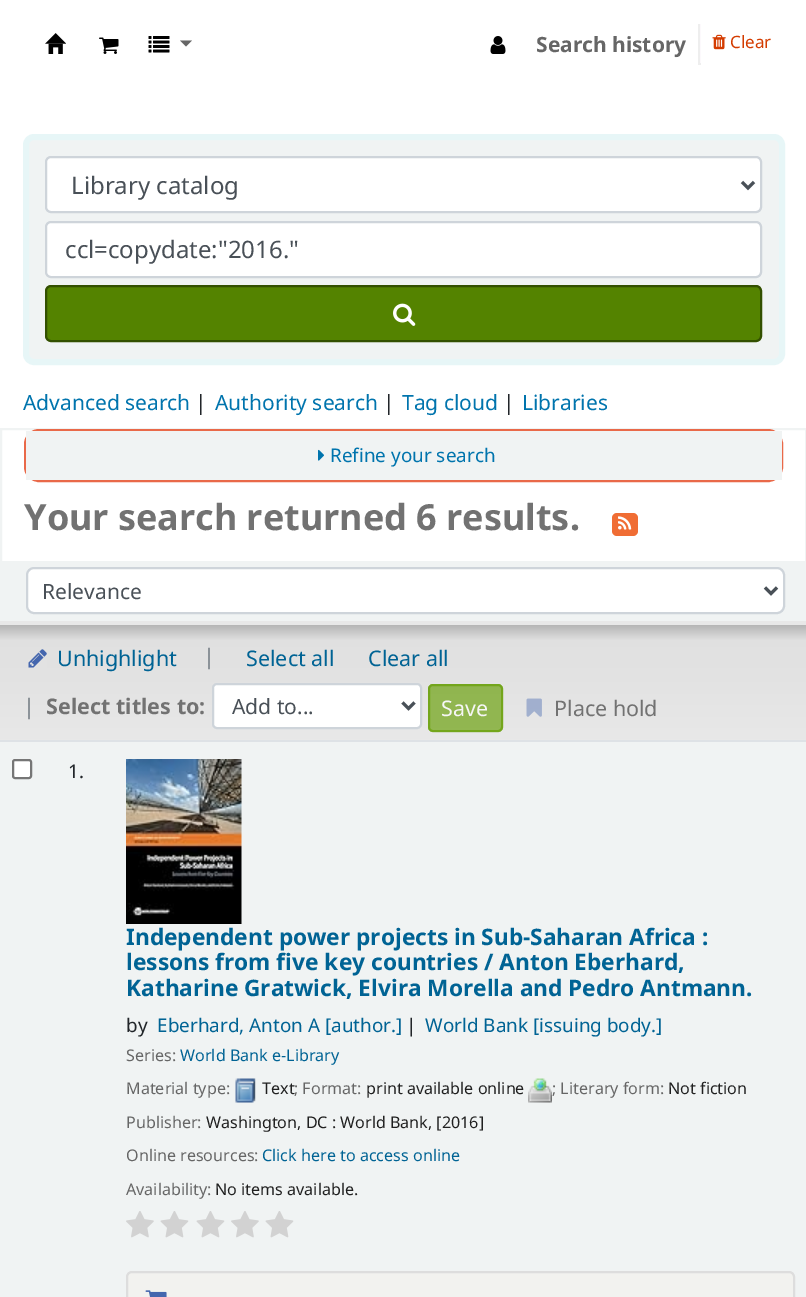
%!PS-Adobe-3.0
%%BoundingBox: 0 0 806 1297
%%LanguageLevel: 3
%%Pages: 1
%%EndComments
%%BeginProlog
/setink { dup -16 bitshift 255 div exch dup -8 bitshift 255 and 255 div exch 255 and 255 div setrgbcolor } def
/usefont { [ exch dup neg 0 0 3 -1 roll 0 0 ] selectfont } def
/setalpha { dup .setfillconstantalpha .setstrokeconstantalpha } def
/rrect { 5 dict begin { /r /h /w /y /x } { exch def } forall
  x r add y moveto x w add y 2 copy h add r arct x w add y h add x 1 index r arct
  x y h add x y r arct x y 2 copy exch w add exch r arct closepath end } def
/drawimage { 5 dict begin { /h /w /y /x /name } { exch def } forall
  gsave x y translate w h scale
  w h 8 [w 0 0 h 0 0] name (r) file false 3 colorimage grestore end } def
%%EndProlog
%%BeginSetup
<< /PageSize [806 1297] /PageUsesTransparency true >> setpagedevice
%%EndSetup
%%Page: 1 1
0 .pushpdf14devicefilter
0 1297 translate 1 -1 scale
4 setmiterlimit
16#FFFFFF setink
0 0 806 1297 rectfill
(img1.raw) 45 33 21 21 drawimage
(img2.raw) 99 37 20 17 drawimage
(img3.raw) 148 36 22 17 drawimage
16#666666 setink
180 40.5 moveto 192 40.5 lineto 186 46.5 lineto closepath fill
(img4.raw) 490 36 16 18 drawimage
/NotoSans-Bold 21 usefont
536 52 moveto (Search history) show
[
    [700 24 1 41 16#FCF9FC]
    [698 63 3 2 16#EEEEEE]
    [698 24 2 41 16#EEEEEE]
] { aload pop setink rectfill } forall
(img5.raw) 712 34 14 16 drawimage
/NotoSans-Regular 17 usefont
16#D43C00 setink
730 48 moveto (Clear) show
16#F0F3F3 setink
26 137 756 225 8 rrect gsave fill grestore
16#E7F6F7 setink
6 setlinewidth
stroke
16#FFFFFF setink
46 157 715 55 5 rrect gsave fill grestore
16#CED4DA setink
2 setlinewidth
stroke
16#495057 setink
3 setlinewidth
742 182 moveto 748 188 lineto 754 182 lineto stroke
/NotoSans-Regular 24 usefont
71 194 moveto (Library catalog) show
16#FFFFFF setink
46 222 715 55 5 rrect gsave fill grestore
16#CED4DA setink
2 setlinewidth
stroke
16#495057 setink
65 258 moveto (ccl=copydate:"2016.") show
16#548300 setink
46 286 715 55 5 rrect gsave fill grestore
16#335000 setink
stroke
(img6.raw) 393 303 23 23 drawimage
/NotoSans-Regular 21 usefont
16#0074AD setink
23 410 moveto (Advanced search) show
16#212529 setink
195 410 moveto (|) show
16#0074AD setink
215 410 moveto (Authority search) show
16#212529 setink
383 410 moveto (|) show
16#0074AD setink
402 410 moveto (Tag cloud) show
16#212529 setink
503 410 moveto (|) show
16#0074AD setink
522 410 moveto (Libraries) show
16#F0F3F3 setink
1 429 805 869 rectstroke
16#E96949 setink
25 430 757 51 14 rrect stroke
16#F0F3F3 setink
26 431 756 49 rectfill
(img7.raw) 318 449 6 12 drawimage
/NotoSans-Regular 18.9 usefont
16#0074AD setink
330 462 moveto (Refine your search) show
/NotoSans-Bold 36 usefont
16#727272 setink
24 530 moveto (Your search returned 6 results.) show
16#F06D34 setink
612 513 26 23 5 rrect fill
(img8.raw) 618 516 14 14 drawimage
16#F0F3F3 setink
2 561 803 60 rectfill
16#E8E8E8 setink
0 621 806 4 rectfill
16#FFFFFF setink
27 568 757 45 7 rrect gsave fill grestore
16#CED4DA setink
stroke
16#495057 setink
3 setlinewidth
765 587.5 moveto 771 593.5 lineto 777 587.5 lineto stroke
/NotoSans-Regular 21 usefont
42 599 moveto (Relevance) show
gsave 0 625 moveto 806 625 lineto 806 740 lineto 0 740 lineto closepath clip newpath
<< /ShadingType 2 /ColorSpace /DeviceRGB /Coords [404 624 404 740] /Extend [true true] /Function << /FunctionType 3 /Domain [0 1] /Functions [<< /FunctionType 2 /Domain [0 1] /C0 [0.698 0.698 0.698] /C1 [0.878 0.878 0.878] /N 1 >> << /FunctionType 2 /Domain [0 1] /C0 [0.878 0.878 0.878] /C1 [0.91 0.91 0.91] /N 1 >>] /Bounds [0.14] /Encode [0 1 0 1] >> >> shfill grestore
(img9.raw) 28 649 19 19 drawimage
/NotoSans-Regular 21.5 usefont
16#006394 setink
57 666 moveto (Unhighlight) show
16#6C757D setink
203 664 moveto (|) show
16#006394 setink
246 666 moveto (Select all) show
368 666 moveto (Clear all) show
16#6C757D setink
23 714 moveto (|) show
/NotoSans-Bold 21.5 usefont
16#727272 setink
46 714 moveto (Select titles to:) show
16#FFFFFF setink
213 684 208 44 4 rrect gsave fill grestore
16#CED4DA setink
2 setlinewidth
stroke
16#495057 setink
3 setlinewidth
402.5 702.5 moveto 408.5 708.5 lineto 414.5 702.5 lineto stroke
/NotoSans-Regular 21 usefont
232 714 moveto (Add to...) show
0.65 setalpha
16#649D00 setink
428 684 75 48 5 rrect fill
2 setlinewidth
429 685 73 46 4 rrect stroke
/NotoSans-Regular 21.5 usefont
1 setalpha
16#F6F6F6 setink
441 716 moveto (Save) show
(img10.raw) 526 698 16 19 drawimage
16#727272 setink
554 716 moveto (Place hold) show
16#F0F3F3 setink
2 742 803 555 rectfill
16#FFFFFF setink
13 760 18 18 2 rrect gsave fill grestore
16#767676 setink
stroke
/NotoSans-Regular 18.9 usefont
16#212529 setink
68 778 moveto (1.) show
16#DEE2E6 setink
0 740 806 2 rectfill
(img11.raw) 126 759 116 165 drawimage
/NotoSans-Bold 22.7 usefont
16#006394 setink
[
    [(Independent power projects in Sub-Saharan Africa :) 126 945]
    [(lessons from five key countries / Anton Eberhard,) 126 970]
    [(Katharine Gratwick, Elvira Morella and Pedro Antmann.) 126 996]
] { aload pop moveto show } forall
/NotoSans-Regular 18.9 usefont
16#212529 setink
126 1032 moveto (by) show
16#006394 setink
157 1032 moveto (Eberhard, Anton A [author.]) show
16#212529 setink
406 1032 moveto (|) show
16#006394 setink
425 1032 moveto (World Bank [issuing body.]) show
/NotoSans-Regular 16.1 usefont
16#666666 setink
126 1061 moveto (Series:) show
16#006394 setink
180 1061 moveto (World Bank e-Library) show
16#666666 setink
126 1094 moveto (Material type:) show
(img12.raw) 235 1078 21 25 drawimage
16#202020 setink
262 1094 moveto (Text) show
16#666666 setink
294 1094 moveto (; Format:) show
16#202020 setink
366 1094 moveto (print available online) show
(img13.raw) 528 1078 24 25 drawimage
16#666666 setink
552 1094 moveto (; Literary form:) show
16#202020 setink
668 1094 moveto (Not fiction) show
16#666666 setink
126 1128 moveto (Publisher:) show
16#202020 setink
206 1128 moveto (Washington, DC : World Bank, [2016]) show
16#666666 setink
126 1161 moveto (Online resources:) show
16#006394 setink
262 1161 moveto (Click here to access online) show
16#666666 setink
126 1195 moveto (Availability:) show
16#202020 setink
215 1195 moveto (No items available.) show
(img14.raw) 126 1211 28 27 drawimage
(img15.raw) 160 1211 29 27 drawimage
(img15.raw) 196 1211 29 27 drawimage
(img14.raw) 231 1211 28 27 drawimage
(img15.raw) 265 1211 29 27 drawimage
16#F2F2EF setink
127 1272 667 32 5 rrect gsave fill grestore
16#DDDDDD setink
stroke
(img16.raw) 145 1290 22 7 drawimage
.poppdf14devicefilter showpage
%%EOF
